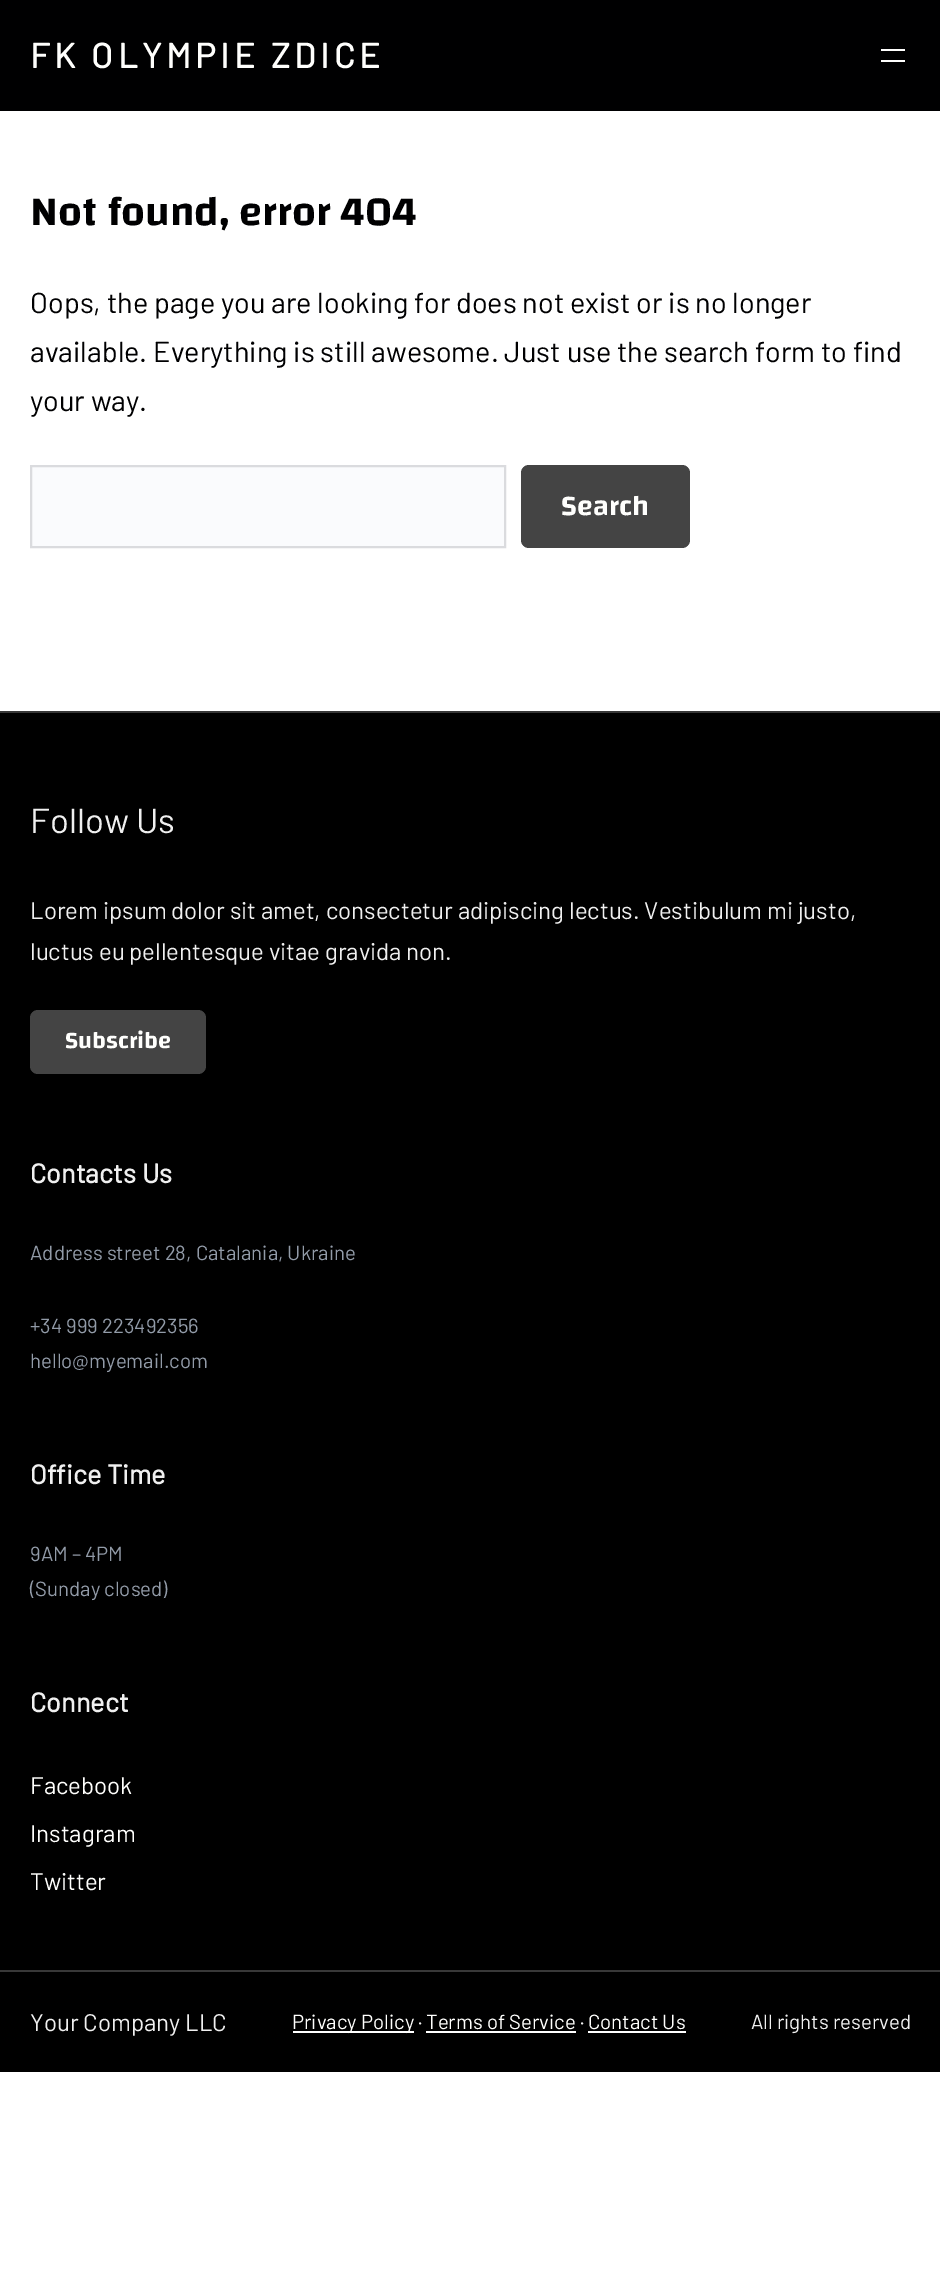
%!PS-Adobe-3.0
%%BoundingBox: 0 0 940 2288
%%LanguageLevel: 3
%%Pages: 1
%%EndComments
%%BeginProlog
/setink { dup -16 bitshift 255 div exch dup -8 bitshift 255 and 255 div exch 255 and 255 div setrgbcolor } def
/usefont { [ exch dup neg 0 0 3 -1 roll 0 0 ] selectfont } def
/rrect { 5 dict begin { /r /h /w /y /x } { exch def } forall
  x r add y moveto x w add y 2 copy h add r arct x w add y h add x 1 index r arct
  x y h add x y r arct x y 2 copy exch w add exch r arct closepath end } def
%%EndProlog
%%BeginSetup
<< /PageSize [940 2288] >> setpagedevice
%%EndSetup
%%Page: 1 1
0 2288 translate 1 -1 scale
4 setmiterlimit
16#FFFFFF setink
0 0 940 2288 rectfill
16#000001 setink
0 0 940 111 rectfill
/Barlow-Bold 34.75 usefont
16#FFFFFD setink
30 68 moveto 4.5 0 (FK OLYMPIE ZDICE) ashow
16#FFFFFE setink
881 49 24 2 rectfill
881 60 24 2 rectfill
/Changa-SemiBold 42 usefont
16#000001 setink
30 225 moveto (Not found, error 404) show
/Barlow-Regular 28.8 usefont
[
    [(Oops, the page you are looking for does not exist or is no longer) 30 313]
    [(available. Everything is still awesome. Just use the search form to find) 30 362]
    [(your way.) 30 411]
] { aload pop moveto show } forall
16#FAFBFD setink
31 466 moveto 505 466 lineto 505 547 lineto 31 547 lineto closepath gsave fill grestore
16#DADBDE setink
2 setlinewidth
stroke
16#444444 setink
521 465 169 83 8 rrect fill
/Changa-SemiBold 28.8 usefont
16#FFFFFD setink
561 515 moveto (Search) show
16#000000 setink
0 713 940 1257 rectfill
16#383838 setink
0 711 940 2 rectfill
/Barlow-Regular 34.75 usefont
16#F0F0F0 setink
30 833 moveto (Follow Us) show
/Barlow-Regular 24 usefont
30 919 moveto (Lorem ipsum dolor sit amet, consectetur adipiscing lectus. Vestibulum mi justo,) show
30 960 moveto (luctus eu pellentesque vitae gravida non.) show
16#444444 setink
30 1010 176 64 8 rrect fill
/Changa-SemiBold 24 usefont
16#FFFFFD setink
65 1048 moveto (Subscribe) show
/Barlow-Bold 27 usefont
16#F0F0F0 setink
30 1183 moveto (Contacts Us) show
/Barlow-Regular 20.4 usefont
16#929BA8 setink
[
    [(Address street 28, Catalania, Ukraine) 30 1260]
    [(+34 999 223492356) 30 1333]
    [(hello@myemail.com) 30 1368]
] { aload pop moveto show } forall
/Barlow-Bold 27 usefont
16#F0F0F0 setink
30 1484 moveto (Office Time) show
/Barlow-Regular 20.4 usefont
16#929BA8 setink
30 1561 moveto (9AM – 4PM) show
30 1596 moveto (\(Sunday closed\)) show
/Barlow-Bold 27 usefont
16#F0F0F0 setink
30 1712 moveto (Connect) show
/Barlow-Regular 24 usefont
16#FFFFFD setink
[
    [(Facebook) 30 1794]
    [(Instagram) 30 1842]
    [(Twitter) 30 1890]
] { aload pop moveto show } forall
16#000000 setink
0 1972 940 100 rectfill
16#383838 setink
0 1970 940 2 rectfill
16#F0F0F0 setink
30 2031 moveto (Your Company LLC) show
16#FFFFFF setink
293 2031 121 2 rectfill
/Barlow-Regular 20.4 usefont
16#FFFFFD setink
292 2029 moveto (Privacy Policy) show
16#F0F0F0 setink
418 2029 moveto (·) show
16#FFFFFD setink
426 2029 moveto (Terms of Service) show
16#FFFFFF setink
426 2031 150 2 rectfill
16#F0F0F0 setink
580 2029 moveto (·) show
16#FFFFFD setink
588 2029 moveto (Contact Us) show
16#FFFFFF setink
588 2031 98 2 rectfill
16#F0F0F0 setink
751 2029 moveto (All rights reserved) show
showpage
%%EOF
